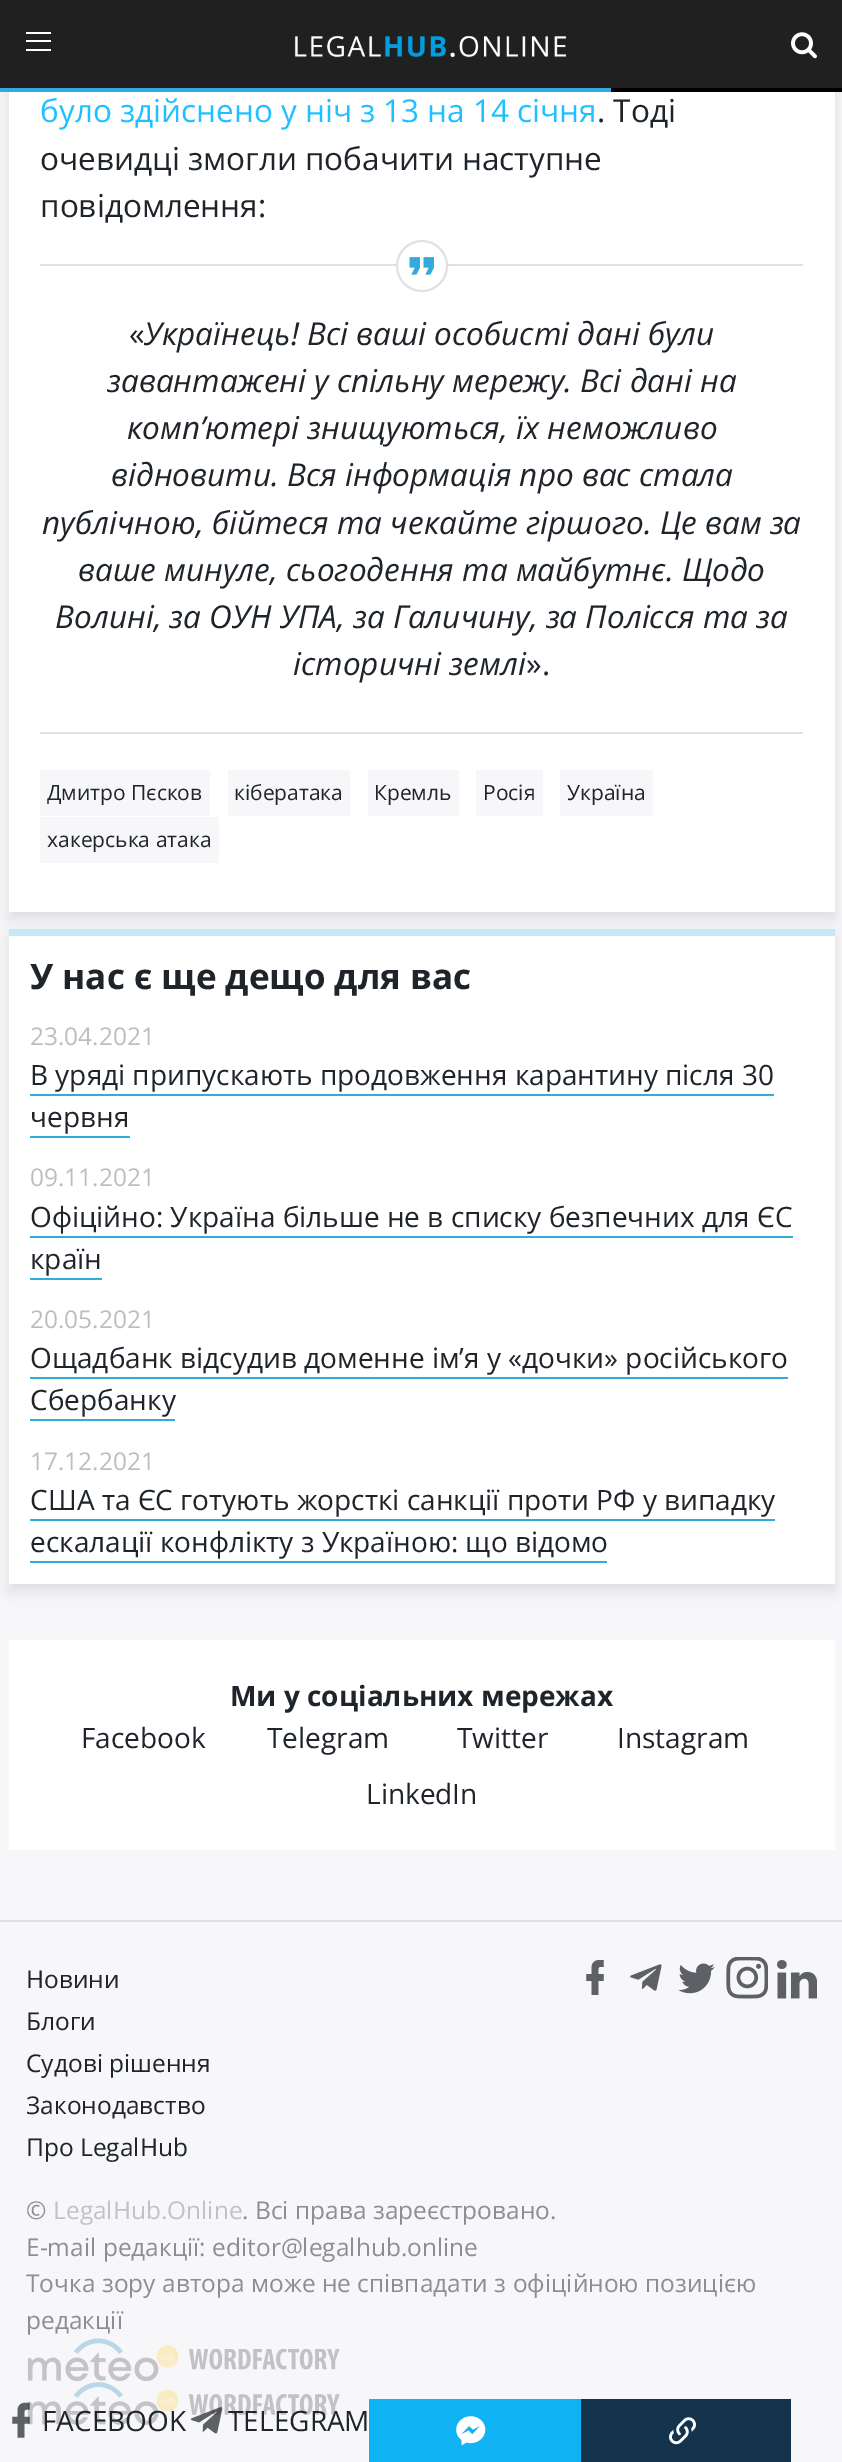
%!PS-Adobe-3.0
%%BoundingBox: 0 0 842 2462
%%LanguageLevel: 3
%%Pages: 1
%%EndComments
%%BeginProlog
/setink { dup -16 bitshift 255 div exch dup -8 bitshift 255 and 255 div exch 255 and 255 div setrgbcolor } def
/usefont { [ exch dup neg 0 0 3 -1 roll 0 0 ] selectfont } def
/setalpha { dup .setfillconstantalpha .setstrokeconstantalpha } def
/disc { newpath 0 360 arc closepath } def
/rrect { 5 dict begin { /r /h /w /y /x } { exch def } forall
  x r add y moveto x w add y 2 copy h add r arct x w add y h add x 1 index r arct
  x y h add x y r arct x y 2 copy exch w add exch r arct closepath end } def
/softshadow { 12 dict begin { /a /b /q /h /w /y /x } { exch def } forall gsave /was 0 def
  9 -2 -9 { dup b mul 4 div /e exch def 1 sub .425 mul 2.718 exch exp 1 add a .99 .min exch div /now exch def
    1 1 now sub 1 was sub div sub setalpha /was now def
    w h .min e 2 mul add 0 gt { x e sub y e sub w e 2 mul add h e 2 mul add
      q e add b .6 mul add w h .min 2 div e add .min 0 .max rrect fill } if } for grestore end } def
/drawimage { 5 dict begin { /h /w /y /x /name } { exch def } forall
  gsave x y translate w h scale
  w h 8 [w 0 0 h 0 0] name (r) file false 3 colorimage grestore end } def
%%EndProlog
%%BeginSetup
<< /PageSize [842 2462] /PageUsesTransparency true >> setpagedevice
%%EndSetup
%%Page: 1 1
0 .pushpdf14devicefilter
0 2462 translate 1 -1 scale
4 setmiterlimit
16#F7F7FA setink
0 0 842 2462 rectfill
16#D1D1D1 setink
9 936 826 655 0 7 0.66 softshadow
16#FFFFFF setink
9 936 826 648 rectfill
16#C5E8F7 setink
9 929 826 7 rectfill
16#D1D1D1 setink
9 -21 826 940 0 7 0.66 softshadow
[
    [611 88 231 4 16#000000]
    [0 88 611 4 16#32AADD]
    [0 0 842 88 16#202020]
    [26 32 25 2 16#FFFFFF]
    [26 40 25 2 16#FFFFFF]
    [26 49 25 2 16#FFFFFF]
] { aload pop setink rectfill } forall
(img1.raw) 294 36 273 22 drawimage
(img2.raw) 791 32 26 27 drawimage
9 92 826 820 rectfill
/OpenSans-Regular 31.5 usefont
16#1EC0FF setink
40 122 moveto (було здійснено у ніч з 13 на 14 січня) show
16#1E242A setink
[
    [(. Тоді) 597 122]
    [(очевидці змогли побачити наступне) 40 170]
    [(повідомлення:) 40 217]
] { aload pop moveto show } forall
16#E1E1E1 setink
40 264 763 2 rectfill
40 732 763 2 rectfill
16#FFFFFF setink
422 266 26 disc fill
(img3.raw) 409 257 25 18 drawimage
16#E1E1E1 setink
2 setlinewidth
422 266 25 disc stroke
16#1E242A setink
129 345 moveto («) show
/OpenSans-Italic 31.5 usefont
[
    [(Українець! Всі ваші особисті дані були) 144 345]
    [(завантажені у спільну мережу. Всі дані на) 107 392]
    [(комп’ютері знищуються, їх неможливо) 127 439]
    [(відновити. Вся інформація про вас стала) 111 486]
    [(публічною, бійтеся та чекайте гіршого. Це вам за) 42 534]
    [(ваше минуле, сьогодення та майбутнє. Щодо) 78 581]
    [(Волині, за ОУН УПА, за Галичину, за Полісся та за) 55 628]
    [(історичні землі) 293 675]
] { aload pop moveto show } forall
/OpenSans-Regular 31.5 usefont
526 675 moveto (».) show
16#F7F7FA setink
40 770 170 46 rectfill
/OpenSans-Regular 21 usefont
16#1E242A setink
47 800 moveto (Дмитро Пєсков) show
16#F7F7FA setink
228 770 122 46 rectfill
16#1E242A setink
234 800 moveto (кібератака) show
16#F7F7FA setink
368 770 91 46 rectfill
16#1E242A setink
374 800 moveto (Кремль) show
16#F7F7FA setink
476 770 67 46 rectfill
16#1E242A setink
483 800 moveto (Росія) show
16#F7F7FA setink
560 770 93 46 rectfill
16#1E242A setink
567 800 moveto (Україна) show
16#F7F7FA setink
40 817 179 46 rectfill
16#1E242A setink
47 847 moveto (хакерська атака) show
(img15.raw) 27 2382 152 43 drawimage
(img4.raw) 12 2402 18 36 drawimage
/OpenSans-Regular 28 usefont
42 2431 moveto (FACEBOOK) show
(img16.raw) 188 2394 152 21 drawimage
(img5.raw) 190 2407 33 27 drawimage
228 2431 moveto (TELEGRAM) show
16#0FB3F4 setink
369 2399 212 63 rectfill
(img6.raw) 456 2416 30 30 drawimage
16#14334C setink
581 2399 210 63 rectfill
(img7.raw) 669 2417 27 28 drawimage
/OpenSans-Bold 35 usefont
16#1E242A setink
30 989 moveto (У нас є ще дещо для вас) show
/OpenSans-Regular 24.5 usefont
16#BCBDBF setink
30 1045 moveto (23.04.2021) show
/OpenSans-Regular 28 usefont
16#1E242A setink
30 1085 moveto (В уряді припускають продовження карантину після 30) show
16#32AADD setink
30 1094 744 2 rectfill
16#1E242A setink
30 1127 moveto (червня) show
16#32AADD setink
30 1136 100 2 rectfill
/OpenSans-Regular 24.5 usefont
16#BCBDBF setink
30 1186 moveto (09.11.2021) show
/OpenSans-Regular 28 usefont
16#1E242A setink
30 1227 moveto (Офіційно: Україна більше не в списку безпечних для ЄС) show
16#32AADD setink
30 1236 763 2 rectfill
16#1E242A setink
30 1269 moveto (країн) show
16#32AADD setink
30 1278 72 2 rectfill
/OpenSans-Regular 24.5 usefont
16#BCBDBF setink
30 1328 moveto (20.05.2021) show
/OpenSans-Regular 28 usefont
16#1E242A setink
30 1368 moveto (Ощадбанк відсудив доменне ім’я у «дочки» російського) show
16#32AADD setink
30 1377 758 2 rectfill
16#1E242A setink
30 1410 moveto (Сбербанку) show
16#32AADD setink
30 1419 145 2 rectfill
/OpenSans-Regular 24.5 usefont
16#BCBDBF setink
30 1470 moveto (17.12.2021) show
/OpenSans-Regular 28 usefont
16#1E242A setink
30 1510 moveto (США та ЄС готують жорсткі санкції проти РФ у випадку) show
16#32AADD setink
30 1519 745 2 rectfill
16#1E242A setink
30 1552 moveto (ескалації конфлікту з Україною: що відомо) show
16#32AADD setink
30 1561 577 2 rectfill
16#FFFFFF setink
9 1640 826 210 rectfill
/OpenSans-Bold 28 usefont
16#1E242A setink
230 1706 moveto (Ми у соціальних мережах) show
/OpenSans-Regular 28 usefont
[
    [(Facebook) 81 1748]
    [(Telegram) 267 1748]
    [(Twitter) 457 1748]
    [(Instagram) 617 1748]
    [(LinkedIn) 366 1804]
] { aload pop moveto show } forall
16#E0E1E4 setink
0 1920 842 2 rectfill
(img8.raw) 586 1960 18 35 drawimage
(img9.raw) 630 1964 32 27 drawimage
(img10.raw) 678 1963 37 31 drawimage
(img11.raw) 726 1957 42 42 drawimage
(img12.raw) 777 1960 40 39 drawimage
/OpenSans-Regular 24.5 usefont
16#1E242A setink
[
    [(Новини) 26 1988]
    [(Блоги) 26 2030]
    [(Судові рішення) 26 2072]
    [(Законодавство) 26 2114]
    [(Про LegalHub) 26 2156]
] { aload pop moveto show } forall
16#8B8E92 setink
26 2219 moveto (©) show
16#C1C2C6 setink
53 2219 moveto (LegalHub.Online) show
16#8B8E92 setink
[
    [(. Всі права зареєстровано.) 242 2219]
    [(E-mail редакції: editor@legalhub.online) 26 2256]
    [(Точка зору автора може не співпадати з офіційною позицією) 26 2292]
    [(редакції) 26 2329]
] { aload pop moveto show } forall
(img13.raw) 27 2338 152 43 drawimage
(img14.raw) 189 2349 151 21 drawimage
.poppdf14devicefilter showpage
%%EOF
